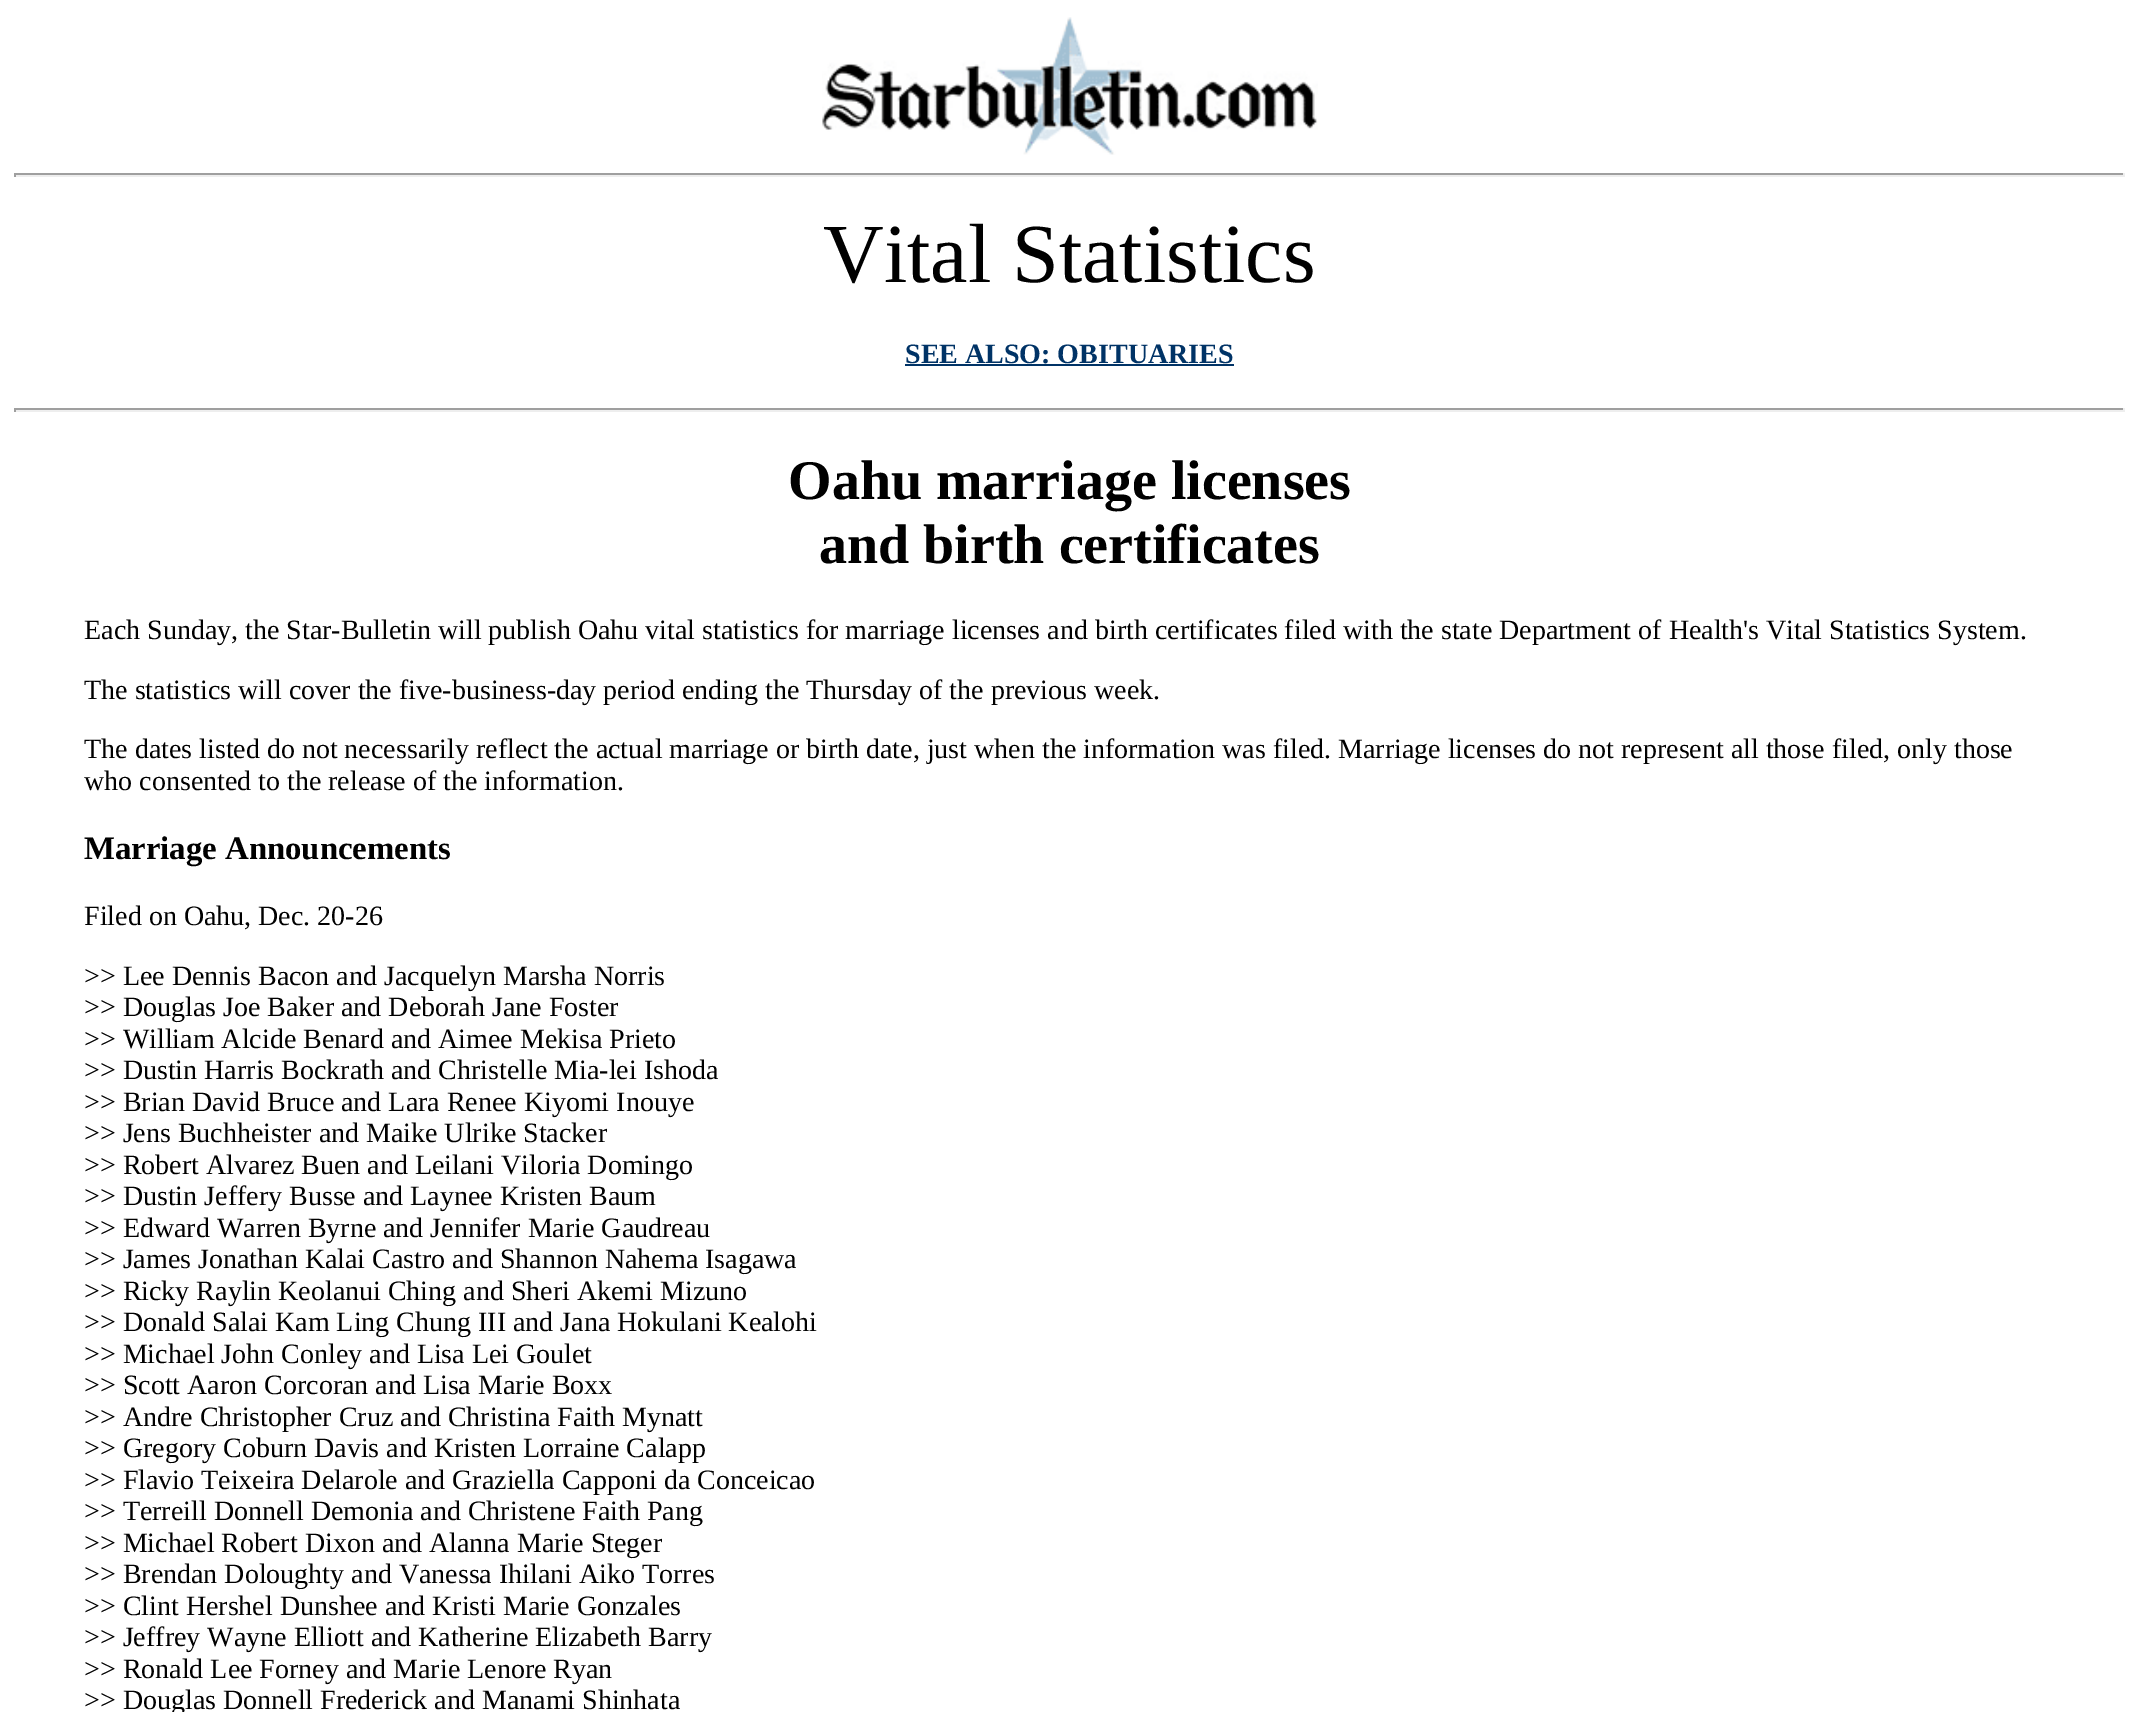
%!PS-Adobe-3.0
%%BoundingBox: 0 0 2138 1712
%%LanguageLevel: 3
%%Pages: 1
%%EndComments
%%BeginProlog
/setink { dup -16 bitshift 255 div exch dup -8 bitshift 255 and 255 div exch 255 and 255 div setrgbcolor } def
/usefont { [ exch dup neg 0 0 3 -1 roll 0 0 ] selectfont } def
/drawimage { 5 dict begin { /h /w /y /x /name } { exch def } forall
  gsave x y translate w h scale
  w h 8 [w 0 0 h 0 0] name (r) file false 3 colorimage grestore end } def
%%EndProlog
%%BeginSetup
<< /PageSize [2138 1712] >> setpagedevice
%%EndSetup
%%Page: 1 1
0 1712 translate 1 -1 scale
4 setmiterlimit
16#FFFFFF setink
0 0 2138 1712 rectfill
(img1.raw) 822 17 496 138 drawimage
[
    [14 173 2111 2 16#9F9F9F]
    [2123 173 2 4 16#EEEEEE]
    [14 175 2111 2 16#EEEEEE]
    [14 173 2 4 16#9F9F9F]
] { aload pop setink rectfill } forall
/LiberationSerif-Regular 84 usefont
16#000000 setink
823 282 moveto (Vital Statistics) show
/LiberationSerif-Bold 28 usefont
16#003366 setink
905 363 moveto (SEE ALSO: OBITUARIES) show
[
    [905 364 329 2 16#003366]
    [14 408 2111 2 16#9F9F9F]
    [2123 408 2 4 16#EEEEEE]
    [14 410 2111 2 16#EEEEEE]
    [14 408 2 4 16#9F9F9F]
] { aload pop setink rectfill } forall
/LiberationSerif-Bold 56 usefont
16#000000 setink
788 499 moveto (Oahu marriage licenses) show
819 563 moveto (and birth certificates) show
/LiberationSerif-Regular 28 usefont
[
    [(Each Sunday, the Star-Bulletin will publish Oahu vital statistics for marriage licenses and birth certificates filed with the state Department of Health's Vital Statistics System.) 84 639]
    [(The statistics will cover the five-business-day period ending the Thursday of the previous week.) 84 699]
    [(The dates listed do not necessarily reflect the actual marriage or birth date, just when the information was filed. Marriage licenses do not represent all those filed, only those) 84 758]
    [(who consented to the release of the information.) 84 790]
] { aload pop moveto show } forall
/LiberationSerif-Bold 32.75 usefont
84 859 moveto (Marriage Announcements) show
/LiberationSerif-Regular 28 usefont
[
    [(Filed on Oahu, Dec. 20-26) 84 925]
    [(>> Lee Dennis Bacon and Jacquelyn Marsha Norris) 84 985]
    [(>> Douglas Joe Baker and Deborah Jane Foster) 84 1016]
    [(>> William Alcide Benard and Aimee Mekisa Prieto) 84 1048]
    [(>> Dustin Harris Bockrath and Christelle Mia-lei Ishoda) 84 1079]
    [(>> Brian David Bruce and Lara Renee Kiyomi Inouye) 84 1111]
    [(>> Jens Buchheister and Maike Ulrike Stacker) 84 1142]
    [(>> Robert Alvarez Buen and Leilani Viloria Domingo) 84 1174]
    [(>> Dustin Jeffery Busse and Laynee Kristen Baum) 84 1205]
    [(>> Edward Warren Byrne and Jennifer Marie Gaudreau) 84 1237]
    [(>> James Jonathan Kalai Castro and Shannon Nahema Isagawa) 84 1268]
    [(>> Ricky Raylin Keolanui Ching and Sheri Akemi Mizuno) 84 1300]
    [(>> Donald Salai Kam Ling Chung III and Jana Hokulani Kealohi) 84 1331]
    [(>> Michael John Conley and Lisa Lei Goulet) 84 1363]
    [(>> Scott Aaron Corcoran and Lisa Marie Boxx) 84 1394]
    [(>> Andre Christopher Cruz and Christina Faith Mynatt) 84 1426]
    [(>> Gregory Coburn Davis and Kristen Lorraine Calapp) 84 1457]
    [(>> Flavio Teixeira Delarole and Graziella Capponi da Conceicao) 84 1489]
    [(>> Terreill Donnell Demonia and Christene Faith Pang) 84 1520]
    [(>> Michael Robert Dixon and Alanna Marie Steger) 84 1552]
    [(>> Brendan Doloughty and Vanessa Ihilani Aiko Torres) 84 1583]
    [(>> Clint Hershel Dunshee and Kristi Marie Gonzales) 84 1615]
    [(>> Jeffrey Wayne Elliott and Katherine Elizabeth Barry) 84 1646]
    [(>> Ronald Lee Forney and Marie Lenore Ryan) 84 1678]
    [(>> Douglas Donnell Frederick and Manami Shinhata) 84 1709]
] { aload pop moveto show } forall
showpage
%%EOF
